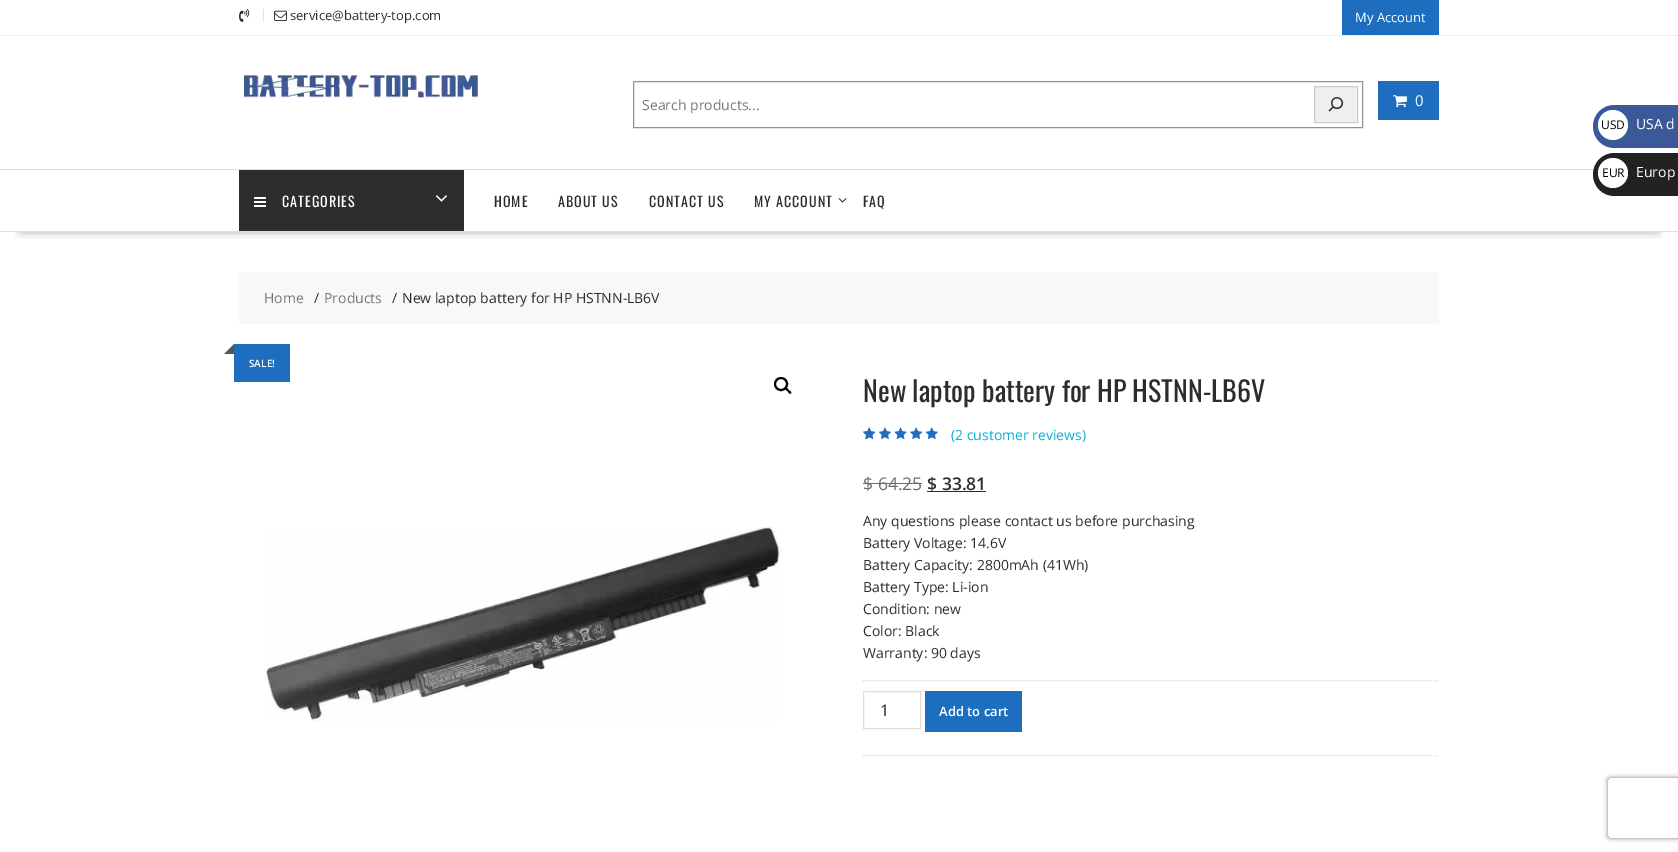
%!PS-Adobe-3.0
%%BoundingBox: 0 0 1678 852
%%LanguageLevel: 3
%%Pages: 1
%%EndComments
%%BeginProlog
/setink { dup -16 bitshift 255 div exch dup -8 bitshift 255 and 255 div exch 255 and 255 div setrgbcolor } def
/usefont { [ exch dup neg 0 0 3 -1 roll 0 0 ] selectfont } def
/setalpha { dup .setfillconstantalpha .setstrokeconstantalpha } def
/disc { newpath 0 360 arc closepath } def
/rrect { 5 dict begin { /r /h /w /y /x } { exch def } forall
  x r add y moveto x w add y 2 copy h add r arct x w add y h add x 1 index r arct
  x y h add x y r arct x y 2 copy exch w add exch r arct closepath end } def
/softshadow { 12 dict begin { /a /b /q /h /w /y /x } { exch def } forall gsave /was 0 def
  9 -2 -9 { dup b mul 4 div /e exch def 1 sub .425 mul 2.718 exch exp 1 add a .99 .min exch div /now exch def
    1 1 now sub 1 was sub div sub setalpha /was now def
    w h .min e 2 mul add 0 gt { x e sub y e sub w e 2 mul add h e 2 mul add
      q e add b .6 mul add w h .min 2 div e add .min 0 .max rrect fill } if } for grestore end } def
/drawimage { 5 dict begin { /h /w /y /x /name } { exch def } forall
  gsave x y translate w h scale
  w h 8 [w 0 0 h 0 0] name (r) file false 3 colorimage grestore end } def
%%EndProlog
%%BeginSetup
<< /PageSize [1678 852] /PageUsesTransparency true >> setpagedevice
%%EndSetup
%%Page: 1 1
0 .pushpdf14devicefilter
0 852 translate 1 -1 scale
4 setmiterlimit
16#FFFFFF setink
0 0 1678 852 rectfill
16#EEEEEE setink
0 35 1678 1 rectfill
(img1.raw) 239 9 11 13 drawimage
16#E2E2E4 setink
263 9 1 13 rectfill
(img2.raw) 274 10 13 11 drawimage
/OpenSans-Regular 13 usefont
16#2D2D2D setink
290 20 moveto (service@battery-top.com) show
16#1E6EBF setink
1342 0 97 35 rectfill
16#FFFFFF setink
1355 22 moveto (My Account) show
(img3.raw) 244 75 234 23 drawimage
16#949494 setink
633.5 81.5 729 46 rectstroke
/OpenSans-Regular 14 usefont
16#777777 setink
642 110 moveto (Search products...) show
16#EFEFEF setink
1314.5 86.5 moveto 1357.5 86.5 lineto 1357.5 122.5 lineto 1314.5 122.5 lineto closepath gsave fill grestore
16#CCCCCC setink
stroke
(img4.raw) 1328 97 16 15 drawimage
16#1E6EBF setink
1378 81 61 39 rectfill
(img5.raw) 1393 95 14 13 drawimage
/OpenSans-Regular 15 usefont
16#FFFFFF setink
1415 106 moveto (0) show
gsave
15 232 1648 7 rectclip
16#000000 setink
21 207 1636 21 0 5.5 0.75 softshadow
grestore
[
    [0 169 1594 1 16#DEDEDE]
    [0 231 1678 1 16#DEDEDE]
    [239 170 225 61 16#2D2D2D]
] { aload pop setink rectfill } forall
(img6.raw) 254 197 12 10 drawimage
/Oswald-Regular 14 usefont
16#FFFFFF setink
282 207 moveto 1 0 (CATEGORIES) ashow
(img7.raw) 435 195 12 7 drawimage
16#2D2D2D setink
494 207 moveto 1 0 (HOME) ashow
558 207 moveto 1 0 (ABOUT US) ashow
649 207 moveto 1 0 (CONTACT US) ashow
754 207 moveto 1 0 (MY ACCOUNT) ashow
(img8.raw) 838 198 9 5 drawimage
863 207 moveto 1 0 (FAQ) ashow
16#F8F8F8 setink
239 272 1200 52 rectfill
/OpenSans-Regular 14 usefont
16#777777 setink
264 303 moveto (Home) show
16#2D2D2D setink
314 303 moveto (/) show
16#777777 setink
324 303 moveto (Products) show
16#2D2D2D setink
392 303 moveto (/) show
402 303 moveto (New laptop battery for HP HSTNN-LB6V) show
16#1E6EBF setink
234 344 56 38 rectfill
16#565955 setink
234 344 moveto 234 354 lineto 224 354 lineto closepath fill
/OpenSans-SemiBold 10 usefont
16#FFFFFF setink
249 367 moveto (SALE!) show
16#000000 setink
2 setlinewidth
781 384 6 disc stroke
785 387.5 moveto 786.5 386.5 788 389 788.5 390 curveto 789.5 390.5 792 392 791 393.5 curveto 789.5 394.5 788 392 787.5 391 curveto 786.5 390.5 784 389 785 387.5 curveto closepath fill
(img9.raw) 266 527 515 195 drawimage
/Oswald-Regular 28 usefont
16#2D2D2D setink
863 402 moveto (New laptop battery for HP HSTNN-LB6V) show
(img10.raw) 863 427 75 12 drawimage
(img11.raw) 863 427 75 13 drawimage
(img12.raw) 863 428 6 12 drawimage
/OpenSans-Regular 14 usefont
16#07AFD4 setink
951 440 moveto (\(2 customer reviews\)) show
/OpenSans-Regular 17.5 usefont
16#6C6C6C setink
863 490 moveto ($ 64.25) show
863 483 59 1 rectfill
/OpenSans-SemiBold 17.5 usefont
16#2D2D2D setink
927 490 moveto ($ 33.81) show
927 491 59 1 rectfill
/OpenSans-Regular 14 usefont
[
    [(Any questions please contact us before purchasing) 863 526]
    [(Battery Voltage: 14.6V) 863 548]
    [(Battery Capacity: 2800mAh \(41Wh\)) 863 570]
    [(Battery Type: Li-ion) 863 592]
    [(Condition: new) 863 614]
    [(Color: Black) 863 636]
    [(Warranty: 90 days) 863 658]
] { aload pop moveto show } forall
16#DDDDDD setink
1 setlinewidth
[1 1] 0 setdash
863 680.5 moveto 1439 680.5 lineto stroke
863 755.5 moveto 1439 755.5 lineto stroke
[] 0 setdash
863.5 691.5 57 37 rectstroke
/OpenSans-Regular 16 usefont
16#2D2D2D setink
880 716 moveto (1) show
16#1E6EBF setink
925 691 97 41 rectfill
/OpenSans-SemiBold 13 usefont
16#FFFFFF setink
939 716 moveto (Add to cart) show
16#3B5998 setink
1614.5 105 moveto 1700 105 lineto 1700 148 lineto 1614.5 148 lineto 1602.5 148 1593 138.5 1593 126.5 curveto 1593 114.5 1602.5 105 1614.5 105 curveto closepath fill
16#FFFFFF setink
1613 125 15 disc fill
/OpenSans-Regular 12 usefont
16#000000 setink
1601 129 moveto (USD) show
/OpenSans-Regular 14 usefont
16#FFFFFF setink
1636 129 moveto (USA d) show
16#222222 setink
1614.5 153 moveto 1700 153 lineto 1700 196 lineto 1614.5 196 lineto 1602.5 196 1593 186.5 1593 174.5 curveto 1593 162.5 1602.5 153 1614.5 153 curveto closepath fill
16#FFFFFF setink
1613 173 15 disc fill
/OpenSans-Regular 12 usefont
16#000000 setink
1602 177 moveto (EUR) show
/OpenSans-Regular 14 usefont
16#FFFFFF setink
1636 177 moveto (Europ) show
gsave
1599 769 moveto 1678 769 lineto 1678 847 lineto 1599 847 lineto closepath 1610 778 moveto 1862 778 lineto 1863 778 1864 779 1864 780 curveto 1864 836 lineto 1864 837 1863 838 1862 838 curveto 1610 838 lineto 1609 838 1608 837 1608 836 curveto 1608 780 lineto 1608 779 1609 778 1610 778 curveto closepath eoclip newpath
16#808080 setink
1608 778 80 60 2 2.5 1 softshadow
grestore
.poppdf14devicefilter showpage
%%EOF
